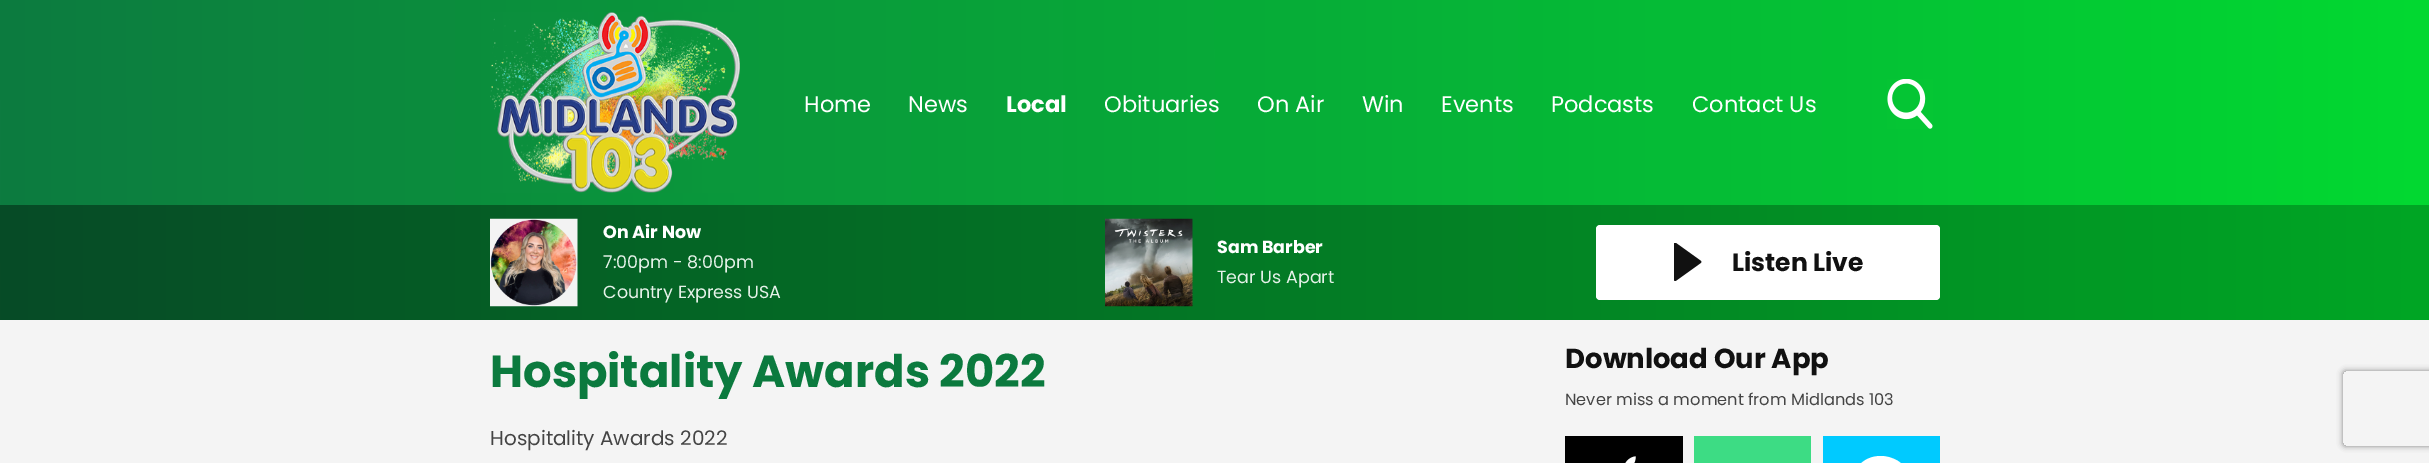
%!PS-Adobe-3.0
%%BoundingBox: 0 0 2429 463
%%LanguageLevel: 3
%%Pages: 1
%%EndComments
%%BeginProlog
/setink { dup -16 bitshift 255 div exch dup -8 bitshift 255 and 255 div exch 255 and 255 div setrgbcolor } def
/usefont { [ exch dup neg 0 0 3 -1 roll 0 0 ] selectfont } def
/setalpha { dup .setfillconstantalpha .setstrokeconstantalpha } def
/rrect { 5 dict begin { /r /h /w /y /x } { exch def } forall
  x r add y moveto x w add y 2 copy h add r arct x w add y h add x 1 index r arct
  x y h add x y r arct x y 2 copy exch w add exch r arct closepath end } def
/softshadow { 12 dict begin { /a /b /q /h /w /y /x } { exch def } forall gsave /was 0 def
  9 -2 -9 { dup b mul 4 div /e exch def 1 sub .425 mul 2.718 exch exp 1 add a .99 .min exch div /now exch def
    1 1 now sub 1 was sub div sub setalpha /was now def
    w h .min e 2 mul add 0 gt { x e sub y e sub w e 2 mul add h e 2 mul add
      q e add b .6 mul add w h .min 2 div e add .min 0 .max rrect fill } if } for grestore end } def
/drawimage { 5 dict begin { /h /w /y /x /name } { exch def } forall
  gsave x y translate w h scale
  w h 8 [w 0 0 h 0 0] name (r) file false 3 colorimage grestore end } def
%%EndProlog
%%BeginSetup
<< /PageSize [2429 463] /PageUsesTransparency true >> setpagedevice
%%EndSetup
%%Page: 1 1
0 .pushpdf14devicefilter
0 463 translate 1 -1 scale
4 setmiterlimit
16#F4F4F4 setink
0 0 2429 463 rectfill
gsave 0 0 moveto 2429 0 lineto 2429 205 lineto 0 205 lineto closepath clip newpath
<< /ShadingType 2 /ColorSpace /DeviceRGB /Coords [0 103 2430 102] /Extend [true true] /Function << /FunctionType 2 /Domain [0 1] /C0 [0.133 0.525 0.314] /C1 [0.094 0.863 0.263] /N 1 >> >> shfill grestore
0.9 setalpha
gsave 0 0 moveto 2429 0 lineto 2429 205 lineto 0 205 lineto closepath clip newpath
<< /ShadingType 2 /ColorSpace /DeviceRGB /Coords [0 103 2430 102] /Extend [true true] /Function << /FunctionType 2 /Domain [0 1] /C0 [0.043 0.478 0.243] /C1 [0 0.851 0.184] /N 1 >> >> shfill grestore
1 setalpha
(img1.raw) 490 12 250 181 drawimage
/Poppins-Regular 22.5 usefont
16#FFFFFF setink
804 112 moveto (Home) show
908 112 moveto (News) show
/Poppins-Bold 22.5 usefont
1006 112 moveto (Local) show
/Poppins-Regular 22.5 usefont
[
    [(Obituaries) 1104 112]
    [(On Air) 1257 112]
    [(Win) 1362 112]
    [(Events) 1441 112]
    [(Podcasts) 1551 112]
    [(Contact Us) 1692 112]
] { aload pop moveto show } forall
(img2.raw) 1887 79 46 50 drawimage
gsave 0 205 moveto 2429 205 lineto 2429 320 lineto 0 320 lineto closepath clip newpath
<< /ShadingType 2 /ColorSpace /DeviceRGB /Coords [0 263 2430 262] /Extend [true true] /Function << /FunctionType 2 /Domain [0 1] /C0 [0.027 0.294 0.149] /C1 [0 0.651 0.141] /N 1 >> >> shfill grestore
(img3.raw) 490 218 88 89 drawimage
/Poppins-Bold 17.5 usefont
603 238 moveto (On Air Now) show
/Poppins-Regular 17.5 usefont
16#E6F2E9 setink
[
    [(7:00pm -) 603 268]
    [(8:00pm) 687 268]
    [(Country Express USA) 603 298]
] { aload pop moveto show } forall
(img4.raw) 1105 218 88 89 drawimage
/Poppins-Bold 17.5 usefont
16#FFFFFF setink
1217 253 moveto (Sam Barber) show
/Poppins-Regular 17.5 usefont
16#E6F2E9 setink
1217 283 moveto (Tear Us Apart) show
16#FFFFFF setink
1596 225 344 75 4 rrect fill
(img5.raw) 1674 243 28 38 drawimage
/Poppins-Bold 25 usefont
16#111111 setink
1732 271 moveto (Listen Live) show
/Poppins-Bold 45 usefont
16#0B7A3E setink
490 387 moveto (Hospitality Awards 2022) show
/Poppins-Regular 20 usefont
16#444444 setink
490 445 moveto (Hospitality Awards 2022) show
/Poppins-Bold 27.5 usefont
16#111111 setink
1565 368 moveto (Download Our App) show
/Poppins-Regular 16.25 usefont
16#444444 setink
1565 405 moveto (Never miss a moment from Midlands 103) show
16#000000 setink
1565 436 118 27 rectfill
(img6.raw) 1625 456 11 7 drawimage
16#3DDC84 setink
1694 436 117 27 rectfill
16#00CAFF setink
1823 436 117 27 rectfill
16#FFFFFF setink
1881 456 moveto 1844 456 1841 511 1877 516 curveto 1877 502 1875 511 1866 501 curveto 1857 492 1859 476 1870 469 curveto 1877 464 1886 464 1893 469 curveto 1907 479 1903 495 1893 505 curveto 1888 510 1883 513 1877 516 curveto 1908 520 1924 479 1898 461 curveto 1893 458 1887 456 1881 456 curveto closepath fill
gsave
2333 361 moveto 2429 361 lineto 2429 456 lineto 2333 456 lineto closepath 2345.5 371 moveto 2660.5 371 lineto 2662 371 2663 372 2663 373.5 curveto 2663 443.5 lineto 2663 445 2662 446 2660.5 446 curveto 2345.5 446 lineto 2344 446 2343 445 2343 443.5 curveto 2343 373.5 lineto 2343 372 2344 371 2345.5 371 curveto closepath eoclip newpath
16#808080 setink
2343 371 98 75 2.5 3 1 softshadow
grestore
.poppdf14devicefilter showpage
%%EOF
